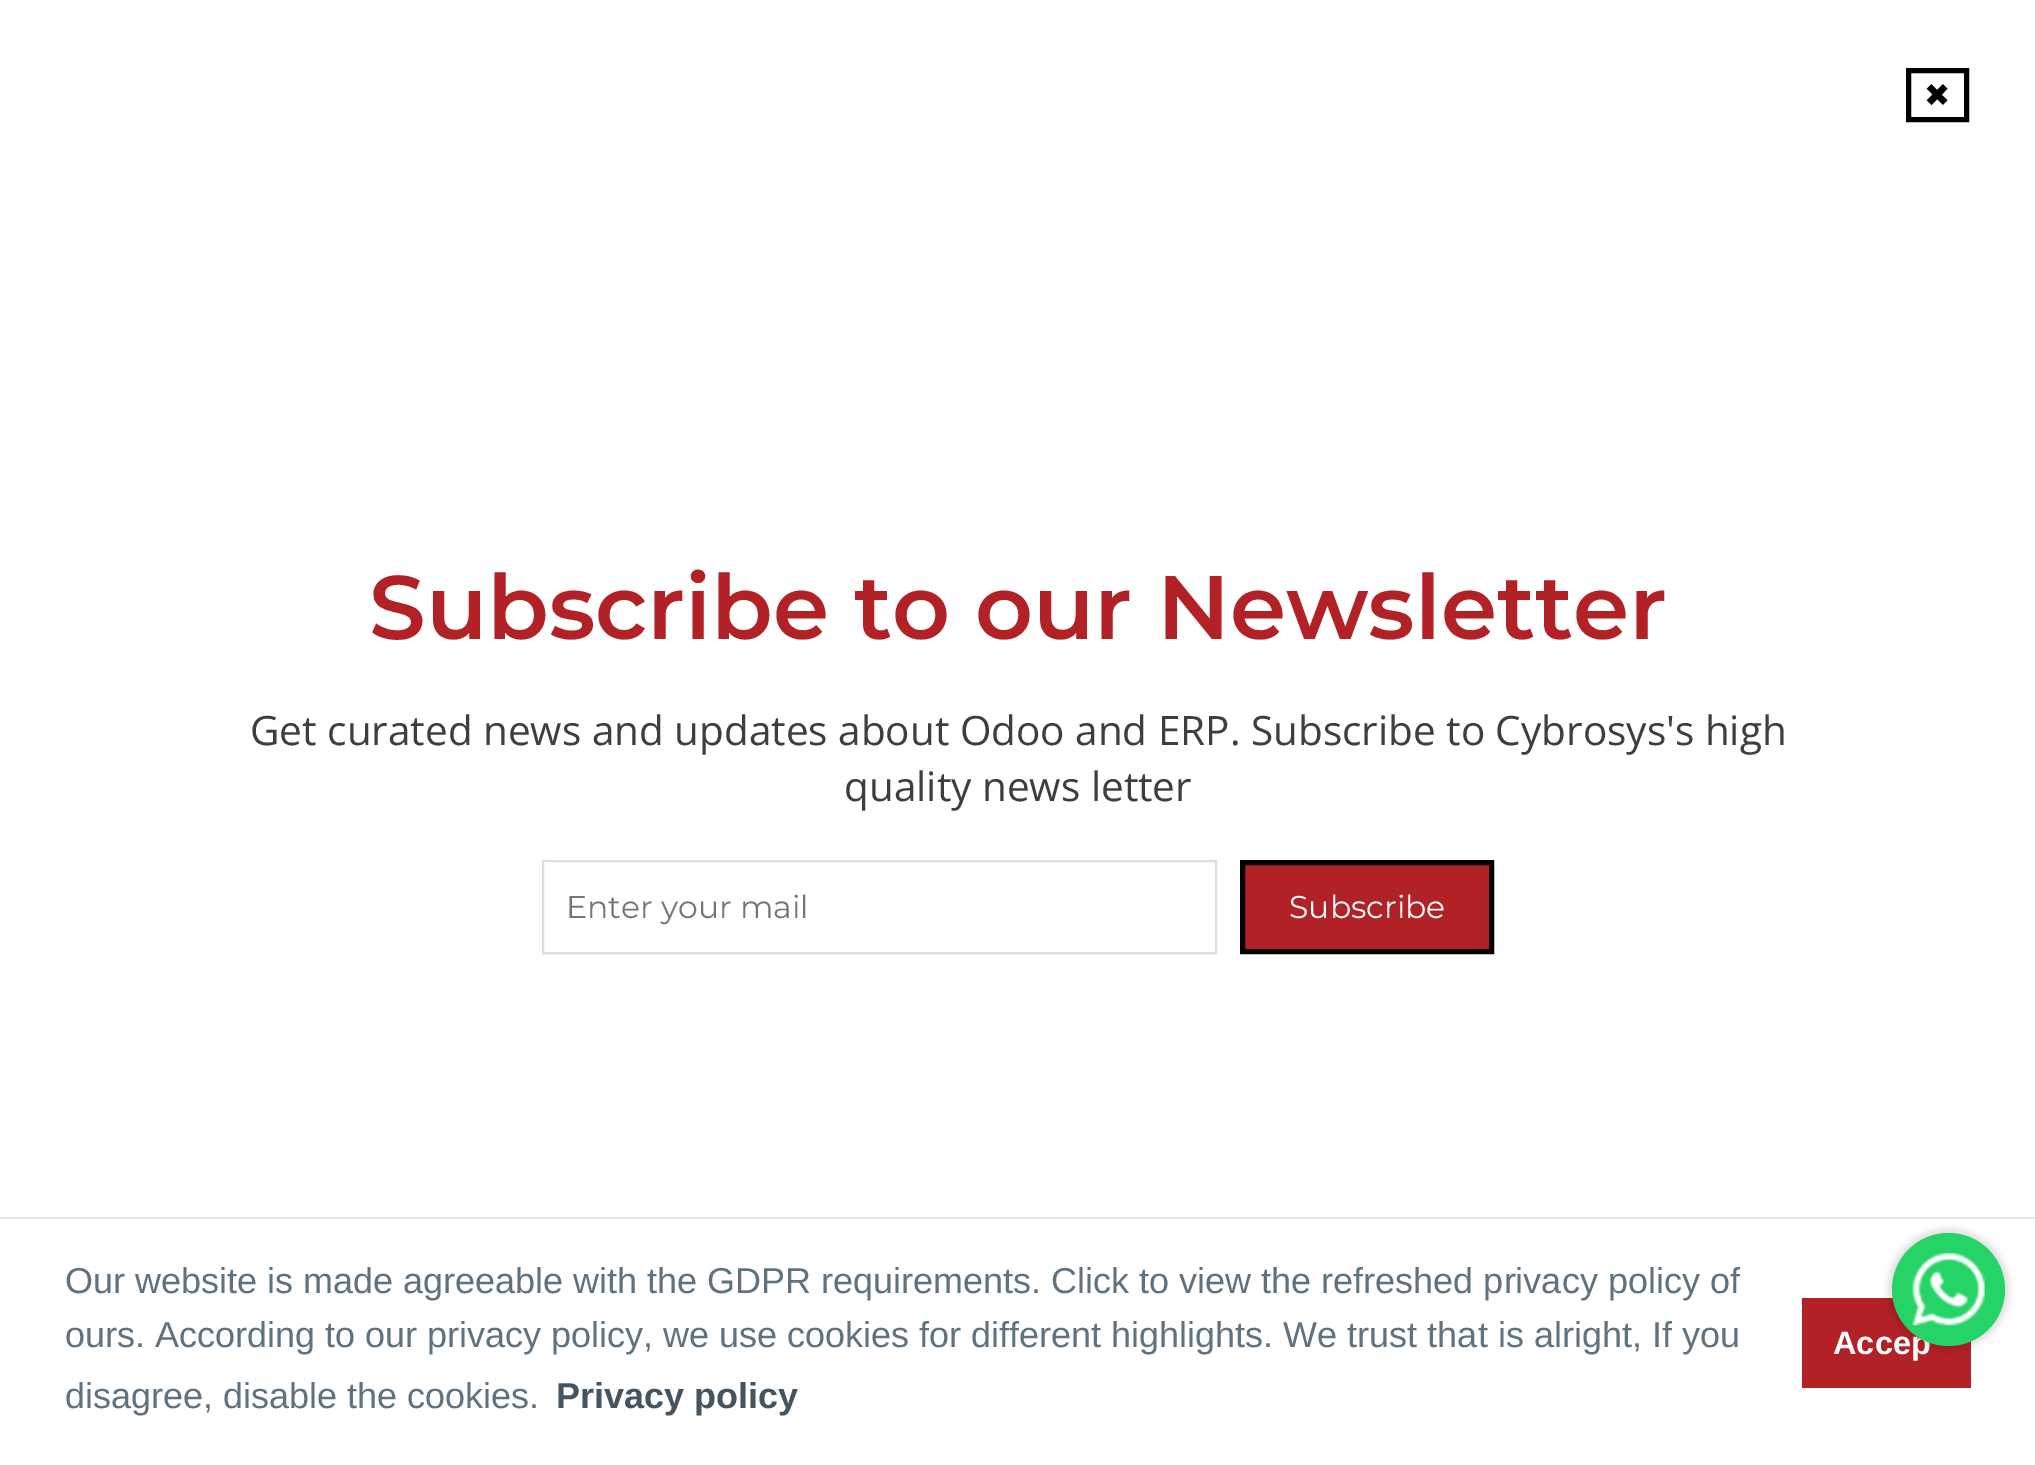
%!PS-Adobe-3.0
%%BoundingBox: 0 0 2035 1465
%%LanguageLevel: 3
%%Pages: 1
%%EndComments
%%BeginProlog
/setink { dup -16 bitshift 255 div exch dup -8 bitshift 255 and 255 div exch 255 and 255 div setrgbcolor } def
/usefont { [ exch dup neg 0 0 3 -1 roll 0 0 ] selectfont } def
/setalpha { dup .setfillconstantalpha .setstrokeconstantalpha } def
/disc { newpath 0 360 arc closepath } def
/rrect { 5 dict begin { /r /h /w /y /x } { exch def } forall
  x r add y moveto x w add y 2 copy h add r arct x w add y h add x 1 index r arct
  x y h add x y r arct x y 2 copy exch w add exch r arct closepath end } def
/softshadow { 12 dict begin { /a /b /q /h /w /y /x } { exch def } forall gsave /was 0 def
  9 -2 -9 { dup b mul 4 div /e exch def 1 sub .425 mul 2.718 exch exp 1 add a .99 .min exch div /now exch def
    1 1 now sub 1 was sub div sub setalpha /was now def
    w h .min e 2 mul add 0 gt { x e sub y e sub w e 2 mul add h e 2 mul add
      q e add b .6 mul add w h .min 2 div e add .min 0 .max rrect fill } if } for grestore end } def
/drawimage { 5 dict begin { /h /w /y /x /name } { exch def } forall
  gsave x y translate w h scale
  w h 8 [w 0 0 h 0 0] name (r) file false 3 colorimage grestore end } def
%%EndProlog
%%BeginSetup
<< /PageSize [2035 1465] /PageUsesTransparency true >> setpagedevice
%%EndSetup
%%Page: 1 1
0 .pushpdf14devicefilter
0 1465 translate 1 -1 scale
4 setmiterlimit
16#FFFFFF setink
0 0 2035 1465 rectfill
16#000000 setink
5 setlinewidth
1908.5 70.5 58 49 rectstroke
/DejaVuSans-Regular 31.5 usefont
1924 106 moveto (✖) show
/Montserrat-SemiBold 90 usefont
16#B22126 setink
369 639 moveto (Subscribe to our Newsletter) show
/OpenSans-Regular 40.5 usefont
16#3E3E3E setink
250 745 moveto (Get curated news and updates about Odoo and ERP. Subscribe to Cybrosys's high) show
844 801 moveto (quality news letter) show
16#DDDDDD setink
2 setlinewidth
543 861 673 92 rectstroke
/Montserrat-Regular 31.5 usefont
16#757575 setink
566 918 moveto (Enter your mail) show
16#B22126 setink
1242.5 862.5 moveto 1491.5 862.5 lineto 1491.5 951.5 lineto 1242.5 951.5 lineto closepath gsave fill grestore
16#000000 setink
5 setlinewidth
stroke
16#FFFFFF setink
1289 918 moveto (Subscribe) show
16#E6E6E6 setink
0 1217 2035 2 rectfill
/LiberationSans-Regular 36 usefont
16#5F727F setink
[
    [(Our website is made agreeable with the GDPR requirements. Click to view the refreshed privacy policy of) 65 1293]
    [(ours. According to our privacy policy, we use cookies for different highlights. We trust that is alright, If you) 65 1347]
    [(disagree, disable the cookies.) 65 1408]
] { aload pop moveto show } forall
/LiberationSans-Bold 36 usefont
16#445460 setink
556 1408 moveto (Privacy policy) show
16#B22126 setink
1802 1298 169 90 rectfill
/LiberationSans-Bold 32.5 usefont
16#FFFFFF setink
1833 1354 moveto (Accep) show
16#000000 setink
1888 1229 121 121 60.5 3.5 0.12 softshadow
16#25D366 setink
1948.5 1289.5 56.5 disc fill
(img1.raw) 1912 1253 73 73 drawimage
.poppdf14devicefilter showpage
%%EOF
